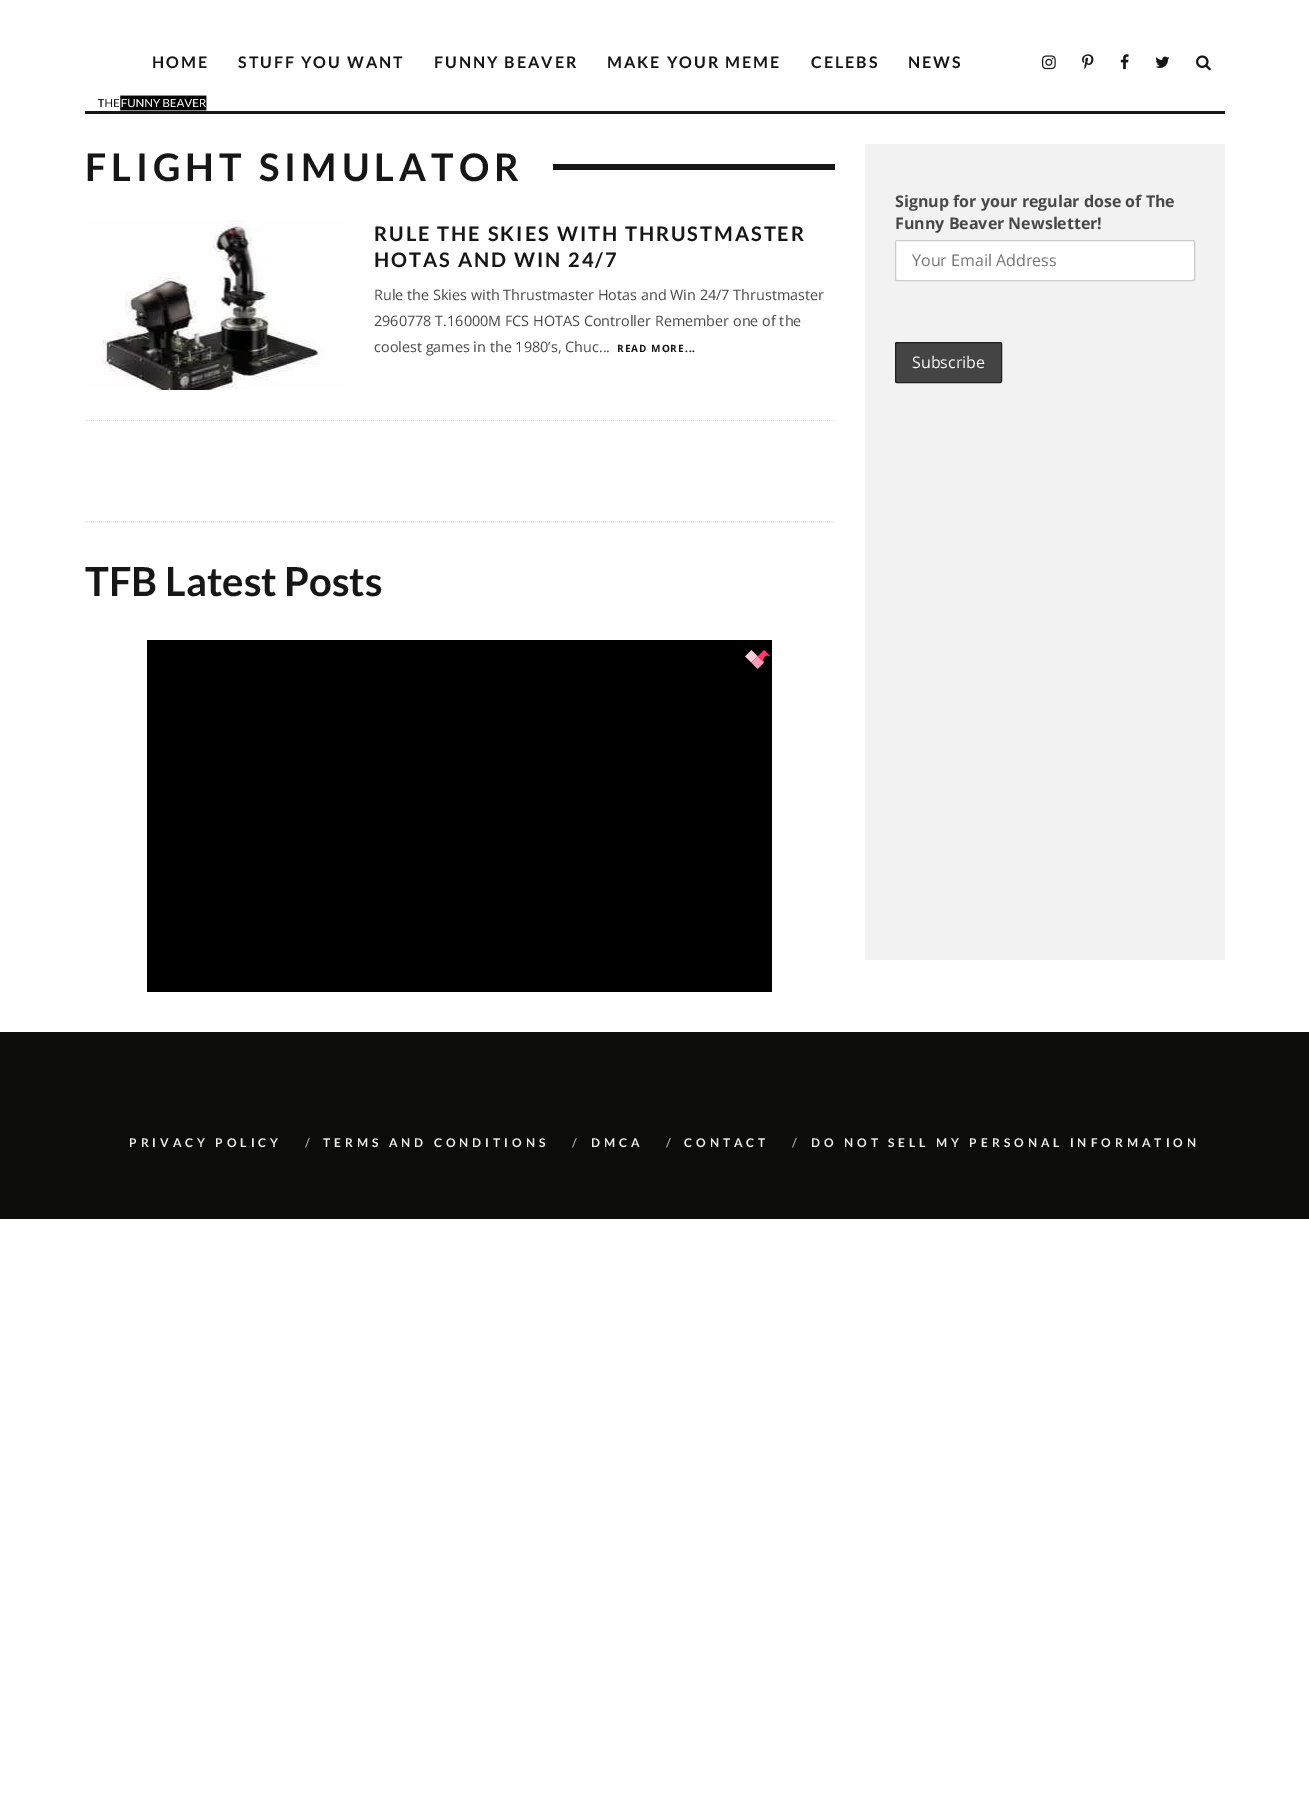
%!PS-Adobe-3.0
%%BoundingBox: 0 0 1309 1819
%%LanguageLevel: 3
%%Pages: 1
%%EndComments
%%BeginProlog
/setink { dup -16 bitshift 255 div exch dup -8 bitshift 255 and 255 div exch 255 and 255 div setrgbcolor } def
/usefont { [ exch dup neg 0 0 3 -1 roll 0 0 ] selectfont } def
/rrect { 5 dict begin { /r /h /w /y /x } { exch def } forall
  x r add y moveto x w add y 2 copy h add r arct x w add y h add x 1 index r arct
  x y h add x y r arct x y 2 copy exch w add exch r arct closepath end } def
/drawimage { 5 dict begin { /h /w /y /x /name } { exch def } forall
  gsave x y translate w h scale
  w h 8 [w 0 0 h 0 0] name (r) file false 3 colorimage grestore end } def
%%EndProlog
%%BeginSetup
<< /PageSize [1309 1819] >> setpagedevice
%%EndSetup
%%Page: 1 1
0 1819 translate 1 -1 scale
4 setmiterlimit
16#FFFFFF setink
0 0 1309 1819 rectfill
16#161616 setink
85 111 1140 3 rectfill
/Lato-Bold 16 usefont
152 68 moveto 2 0 (HOME) ashow
238 68 moveto 2 0 (STUFF YOU WANT) ashow
434 68 moveto 2 0 (FUNNY BEAVER) ashow
607 68 moveto 2 0 (MAKE YOUR MEME) ashow
811 68 moveto 2 0 (CELEBS) ashow
908 68 moveto 2 0 (NEWS) ashow
(img1.raw) 1042 55 14 15 drawimage
(img2.raw) 1082 54 12 16 drawimage
(img3.raw) 1120 54 9 16 drawimage
(img4.raw) 1155 56 15 12 drawimage
(img5.raw) 1196 55 15 16 drawimage
(img6.raw) 97 95 110 16 drawimage
/Lato-Bold 38 usefont
85 181 moveto 5 0 (FLIGHT SIMULATOR) ashow
553 164 282 6 rectfill
16#DDDDDD setink
[1 1] 0 setdash
85 420.5 moveto 835 420.5 lineto stroke
(img7.raw) 85 220 259 170 drawimage
/Lato-Bold 20 usefont
16#161616 setink
374 241 moveto 2 0 (RULE THE SKIES WITH THRUSTMASTER) ashow
374 267 moveto 2 0 (HOTAS AND WIN 24/7) ashow
/OpenSans-Regular 14.4 usefont
16#484848 setink
[
    [(Rule the Skies with Thrustmaster Hotas and Win 24/7 Thrustmaster) 374 300]
    [(2960778 T.16000M FCS HOTAS Controller Remember one of the) 374 326]
    [(coolest games in the 1980’s, Chuc...) 374 352]
] { aload pop moveto show } forall
/OpenSans-Bold 10 usefont
16#161616 setink
617 352 moveto 1 0 (READ MORE...) ashow
16#DDDDDD setink
85 521.5 moveto 835 521.5 lineto stroke
/Lato-Bold 40 usefont
16#161616 setink
85 596 moveto (TFB Latest Posts) show
16#000000 setink
147 640 625 352 rectfill
(img8.raw) 745 650 25 19 drawimage
16#F2F2F2 setink
865 144 360 816 rectfill
/OpenSans-Bold 16 usefont
16#484848 setink
895 207 moveto (Signup for your regular dose of The) show
895 229 moveto (Funny Beaver Newsletter!) show
16#FFFFFF setink
895.5 240.5 299 40 1.5 rrect gsave fill grestore
16#CCCCCC setink
[] 0 setdash
stroke
/OpenSans-Regular 16 usefont
16#757575 setink
912 266 moveto (Your Email Address) show
16#444444 setink
895.5 342.5 106 40 1.5 rrect gsave fill grestore
16#1E1E1E setink
stroke
16#FFFFFF setink
912 368 moveto (Subscribe) show
16#0C0C0B setink
0 1032 1309 187 rectfill
/Lato-Bold 12 usefont
16#EEEEEE setink
129 1147 moveto 4 0 (PRIVACY POLICY) ashow
16#A6A6A6 setink
305 1147 moveto 4 0 (/) ashow
16#EEEEEE setink
323 1147 moveto 4 0 (TERMS AND CONDITIONS) ashow
16#A6A6A6 setink
572 1147 moveto 4 0 (/) ashow
16#EEEEEE setink
591 1147 moveto 4 0 (DMCA) ashow
16#A6A6A6 setink
666 1147 moveto 4 0 (/) ashow
16#EEEEEE setink
684 1147 moveto 4 0 (CONTACT) ashow
16#A6A6A6 setink
792 1147 moveto 4 0 (/) ashow
16#EEEEEE setink
811 1147 moveto 4 0 (DO NOT SELL MY PERSONAL INFORMATION) ashow
showpage
%%EOF
